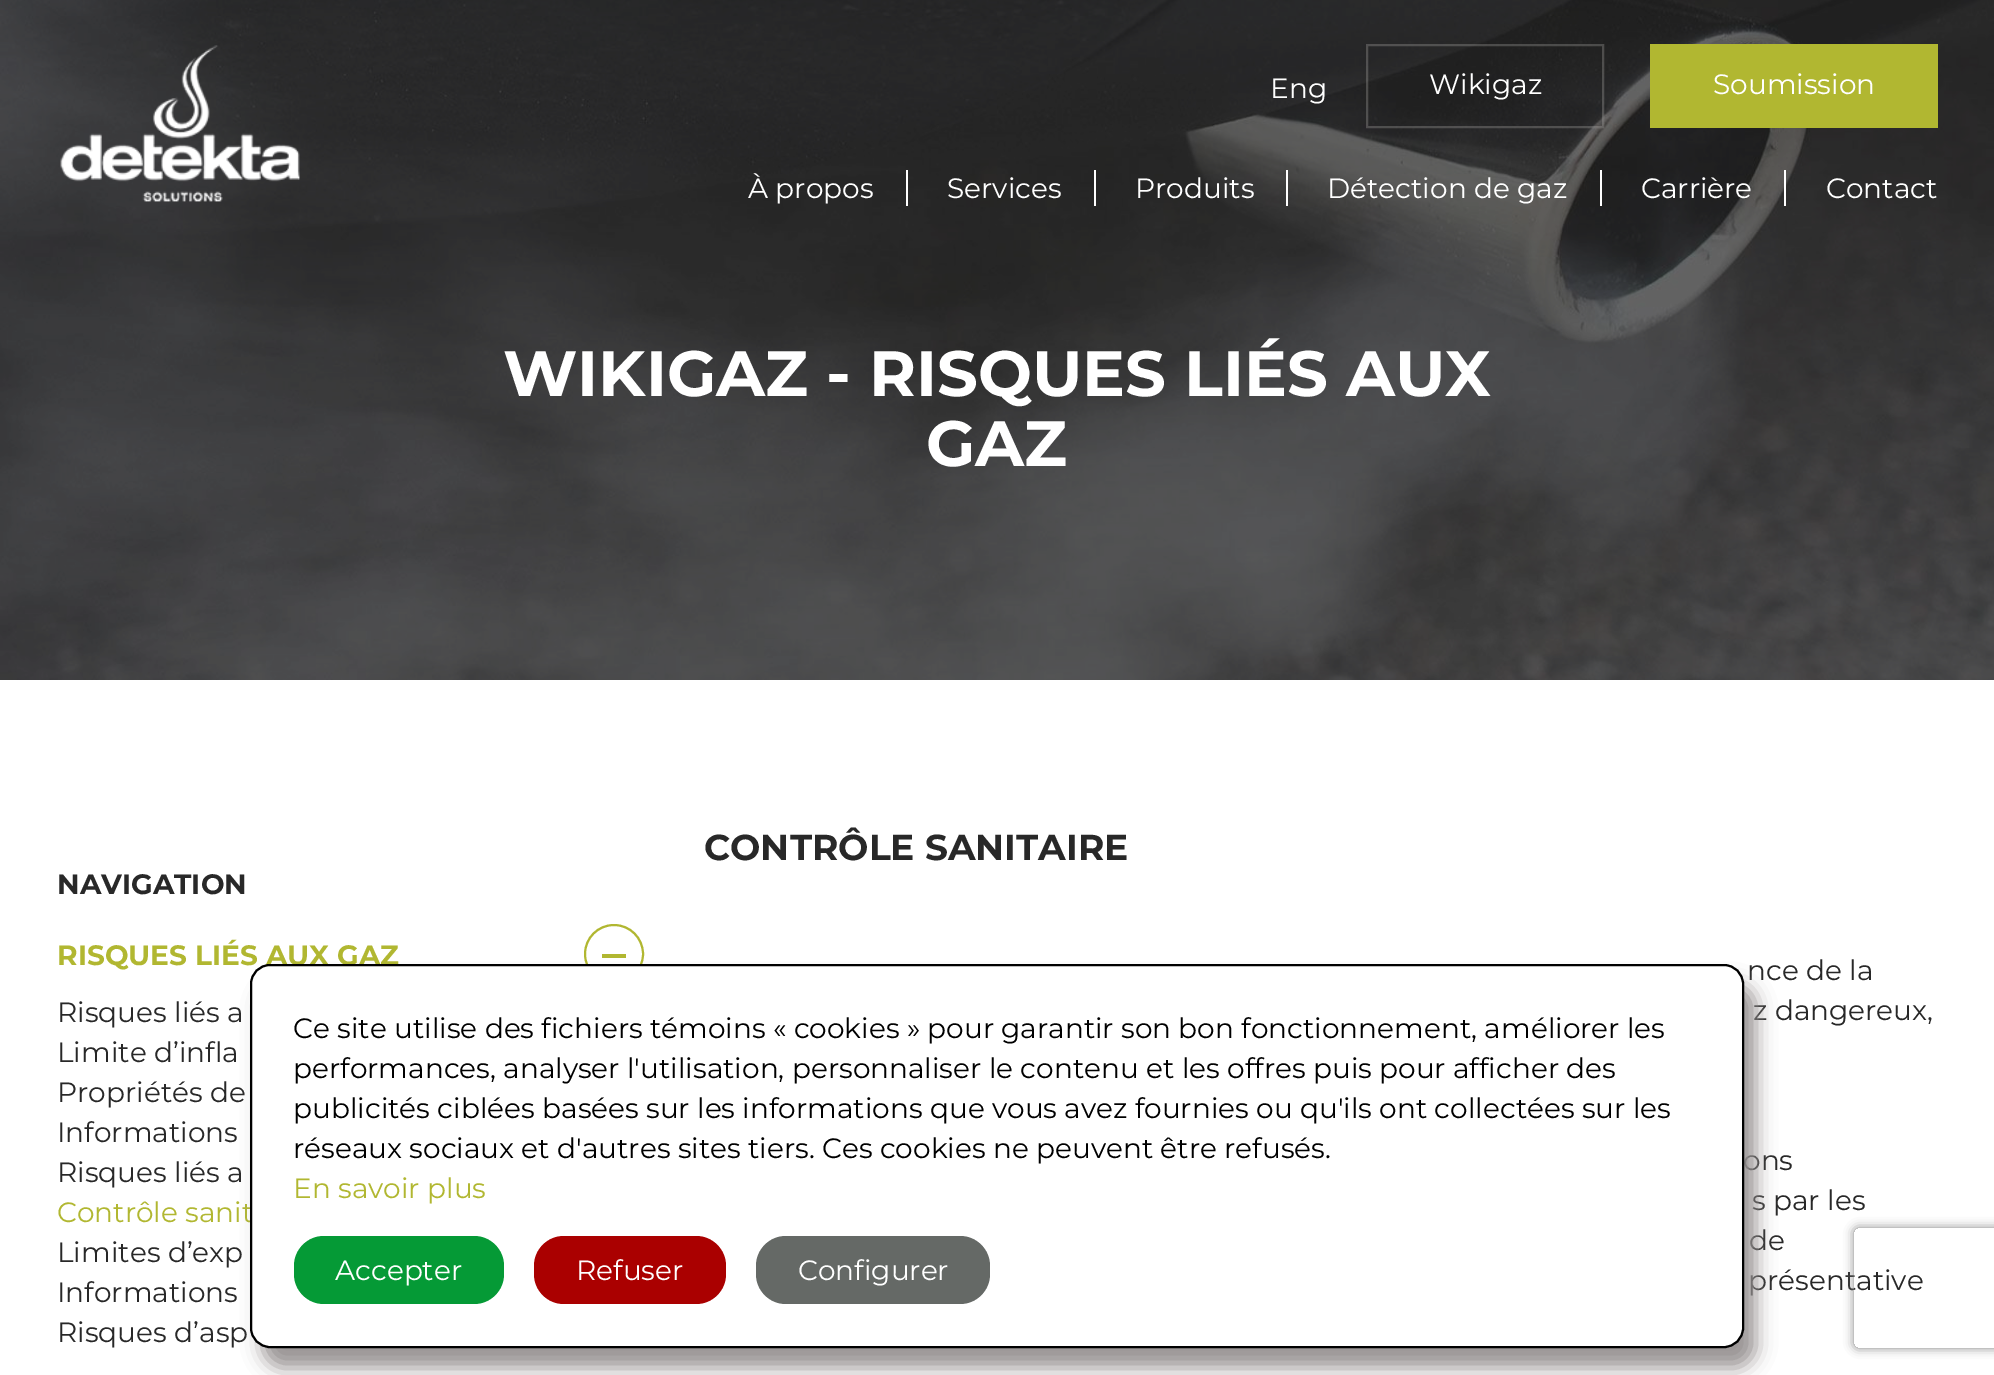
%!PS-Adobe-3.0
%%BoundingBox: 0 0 1994 1375
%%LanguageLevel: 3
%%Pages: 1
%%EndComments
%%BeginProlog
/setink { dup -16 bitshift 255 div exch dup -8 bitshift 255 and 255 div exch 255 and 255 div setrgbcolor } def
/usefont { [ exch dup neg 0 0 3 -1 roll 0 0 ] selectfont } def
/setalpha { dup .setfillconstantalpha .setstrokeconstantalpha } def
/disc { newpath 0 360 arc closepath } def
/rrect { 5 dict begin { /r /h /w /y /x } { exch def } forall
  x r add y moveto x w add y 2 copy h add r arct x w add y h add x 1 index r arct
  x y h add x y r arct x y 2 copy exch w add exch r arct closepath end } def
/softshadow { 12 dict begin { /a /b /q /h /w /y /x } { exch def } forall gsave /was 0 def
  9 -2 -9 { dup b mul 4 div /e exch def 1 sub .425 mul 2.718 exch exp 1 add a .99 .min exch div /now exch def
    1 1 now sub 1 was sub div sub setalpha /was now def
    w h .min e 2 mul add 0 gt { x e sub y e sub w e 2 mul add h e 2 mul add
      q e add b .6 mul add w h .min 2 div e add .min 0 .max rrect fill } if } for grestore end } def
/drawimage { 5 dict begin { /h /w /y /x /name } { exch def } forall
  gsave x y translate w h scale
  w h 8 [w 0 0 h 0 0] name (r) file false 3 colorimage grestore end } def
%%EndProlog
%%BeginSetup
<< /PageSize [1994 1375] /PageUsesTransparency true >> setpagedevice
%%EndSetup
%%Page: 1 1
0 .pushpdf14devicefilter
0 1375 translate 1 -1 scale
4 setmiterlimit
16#FFFFFF setink
0 0 1994 1375 rectfill
(img2.raw) 0 0 1994 680 drawimage
(img1.raw) 60 45 240 157 drawimage
/Montserrat-Regular 28 usefont
1270 98 moveto (Eng) show
0.25 setalpha
16#282828 setink
1589 114 15 14 rectfill
16#D1CFCB setink
2 setlinewidth
1367 45 236 82 rectstroke
1 setalpha
16#FFFFFF setink
1429 94 moveto (Wikigaz) show
16#B1B731 setink
1650 44 288 84 rectfill
16#FFFFFF setink
1713 94 moveto (Soumission) show
748 198 moveto (À propos) show
906 170 2 36 rectfill
947 198 moveto (Services) show
1094 170 2 36 rectfill
1135 198 moveto (Produits) show
1286 170 2 36 rectfill
1327 198 moveto (Détection de gaz) show
1600 170 2 36 rectfill
1641 198 moveto (Carrière) show
1784 170 2 36 rectfill
1826 198 moveto (Contact) show
/Montserrat-Bold 64 usefont
503 396 moveto (WIKIGAZ - RISQUES LIÉS AUX) show
926 466 moveto (GAZ) show
/Montserrat-Bold 28 usefont
16#282828 setink
57 894 moveto (NAVIGATION) show
16#B1B731 setink
57 965 moveto (RISQUES LIÉS AUX GAZ) show
614 954 29 disc stroke
602 954 24 4 rectfill
/Montserrat-Regular 28 usefont
16#282828 setink
[
    [(Risques liés a) 57 1022]
    [(Limite d’infla) 57 1062]
    [(Propriétés de) 57 1102]
    [(Informations) 57 1142]
    [(Risques liés a) 57 1182]
] { aload pop moveto show } forall
16#B1B731 setink
57 1222 moveto (Contrôle sanit) show
16#282828 setink
[
    [(Limites d’exp) 57 1262]
    [(Informations) 57 1302]
    [(Risques d’asp) 57 1342]
] { aload pop moveto show } forall
/Montserrat-Bold 36 usefont
704 860 moveto (CONTRÔLE SANITAIRE) show
/Montserrat-Regular 28 usefont
[
    [(nce de la) 1747 980]
    [(z dangereux,) 1753 1020]
    [(ons) 1743 1170]
    [(s par les) 1752 1210]
    [(de) 1749 1250]
    [(présentative) 1748 1290]
] { aload pop moveto show } forall
16#979292 setink
262 984 1494 384 20 10 1 softshadow
16#FFFFFF setink
251 965 1492 382 19 rrect gsave fill grestore
16#000000 setink
stroke
[
    [(Ce site utilise des fichiers témoins « cookies » pour garantir son bon fonctionnement, améliorer les) 293 1038]
    [(performances, analyser l'utilisation, personnaliser le contenu et les offres puis pour afficher des) 293 1078]
    [(publicités ciblées basées sur les informations que vous avez fournies ou qu'ils ont collectées sur les) 293 1118]
    [(réseaux sociaux et d'autres sites tiers. Ces cookies ne peuvent être refusés.) 293 1158]
] { aload pop moveto show } forall
16#B1B731 setink
293 1198 moveto (En savoir plus) show
16#059A36 setink
294 1236 210 68 30 rrect fill
16#FFFFFF setink
335 1280 moveto (Accepter) show
16#AA0000 setink
534 1236 192 68 30 rrect fill
16#FFFFFF setink
576 1280 moveto (Refuser) show
16#656966 setink
756 1236 234 68 30 rrect fill
16#FFFFFF setink
798 1280 moveto (Configurer) show
gsave
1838 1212 moveto 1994 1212 lineto 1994 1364 lineto 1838 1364 lineto closepath 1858 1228 moveto 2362 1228 lineto 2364 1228 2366 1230 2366 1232 curveto 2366 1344 lineto 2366 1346 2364 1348 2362 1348 curveto 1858 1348 lineto 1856 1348 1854 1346 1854 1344 curveto 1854 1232 lineto 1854 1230 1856 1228 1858 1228 curveto closepath eoclip newpath
16#808080 setink
1854 1228 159 120 4 5 1 softshadow
grestore
.poppdf14devicefilter showpage
%%EOF
